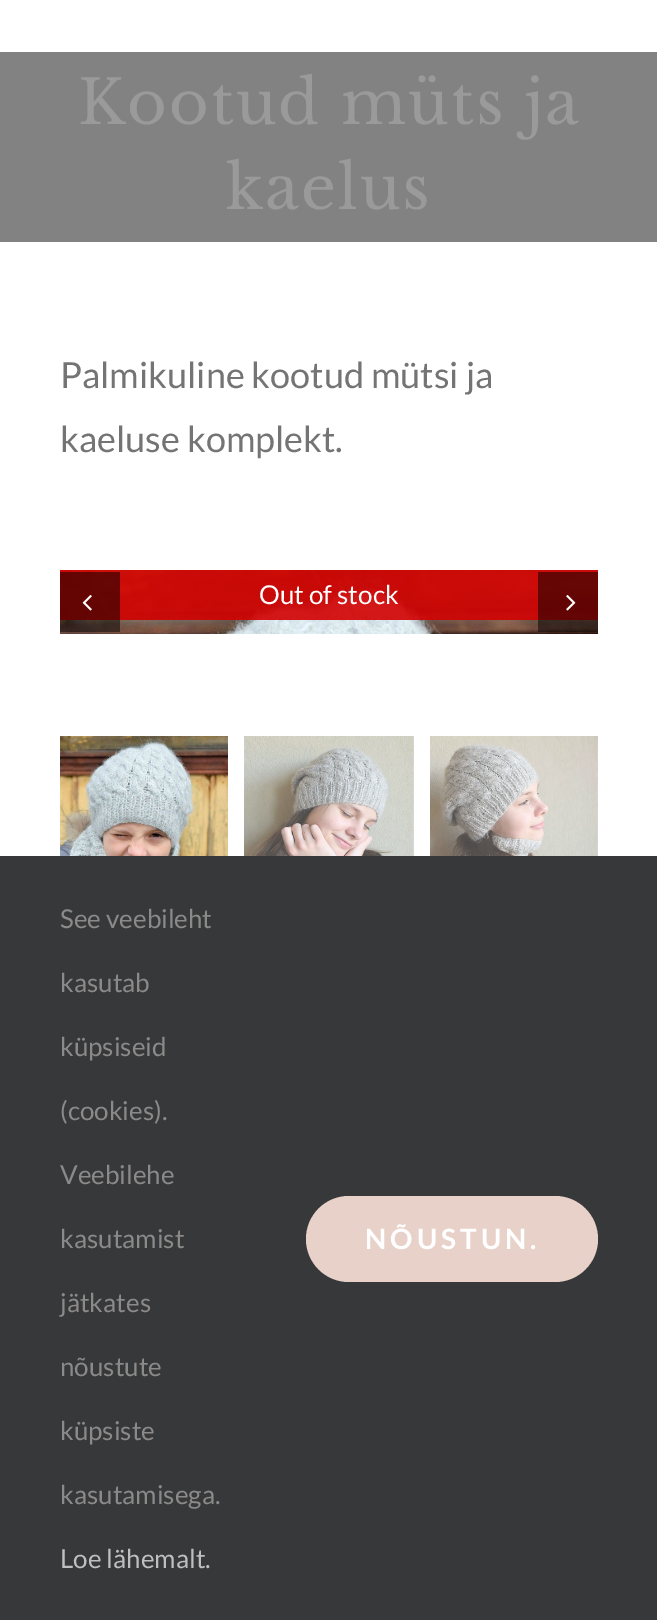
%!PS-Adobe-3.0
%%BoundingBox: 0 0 657 1620
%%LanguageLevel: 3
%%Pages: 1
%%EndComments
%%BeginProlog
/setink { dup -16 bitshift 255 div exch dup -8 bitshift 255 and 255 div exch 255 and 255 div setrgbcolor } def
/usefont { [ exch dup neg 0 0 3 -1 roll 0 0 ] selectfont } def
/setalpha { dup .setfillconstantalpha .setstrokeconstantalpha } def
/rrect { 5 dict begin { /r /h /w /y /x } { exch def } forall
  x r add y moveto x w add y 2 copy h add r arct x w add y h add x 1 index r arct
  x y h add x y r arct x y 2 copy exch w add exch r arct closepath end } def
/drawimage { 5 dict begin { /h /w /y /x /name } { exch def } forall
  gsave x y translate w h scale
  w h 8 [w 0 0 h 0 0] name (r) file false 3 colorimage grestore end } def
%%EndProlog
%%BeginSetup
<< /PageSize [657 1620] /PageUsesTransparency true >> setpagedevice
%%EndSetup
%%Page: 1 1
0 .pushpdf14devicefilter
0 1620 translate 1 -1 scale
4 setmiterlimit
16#FFFFFF setink
0 0 657 1620 rectfill
16#828282 setink
0 52 657 190 rectfill
/LibreBaskerville-Regular 60.75 usefont
16#9A9A9A setink
78 124 moveto 2 0 (Kootud müts ja) ashow
226 209 moveto 2 0 (kaelus) ashow
/Lato-Regular 36 usefont
16#747474 setink
60 388 moveto (Palmikuline kootud mütsi ja) show
60 452 moveto (kaeluse komplekt.) show
(img1.raw) 60 570 538 64 drawimage
0.9 setalpha
16#D20000 setink
60 570 538 50 rectfill
0.5 setalpha
16#000000 setink
60 572 60 60 rectfill
1 setalpha
(img2.raw) 82 595 10 16 drawimage
0.5 setalpha
538 572 60 60 rectfill
1 setalpha
(img3.raw) 566 595 10 16 drawimage
(img4.raw) 60 736 168 120 drawimage
(img5.raw) 244 736 170 120 drawimage
(img6.raw) 430 736 168 120 drawimage
/Lato-Regular 26 usefont
16#FFFFFF setink
259 604 moveto (Out of stock) show
16#363839 setink
0 856 657 764 rectfill
16#8C8989 setink
[
    [(See veebileht) 60 928]
    [(kasutab) 60 992]
    [(küpsiseid) 60 1056]
    [(\(cookies\).) 60 1120]
    [(Veebilehe) 60 1184]
    [(kasutamist) 60 1248]
    [(jätkates) 60 1312]
    [(nõustute) 60 1376]
    [(küpsiste) 60 1440]
    [(kasutamisega.) 60 1504]
] { aload pop moveto show } forall
16#BFBFBF setink
60 1568 moveto (Loe lähemalt.) show
16#E8D1C9 setink
306 1196 292 86 43 rrect fill
/Lato-Bold 28 usefont
16#FFFFFF setink
365 1249 moveto 4 0 (NÕUSTUN.) ashow
.poppdf14devicefilter showpage
%%EOF
